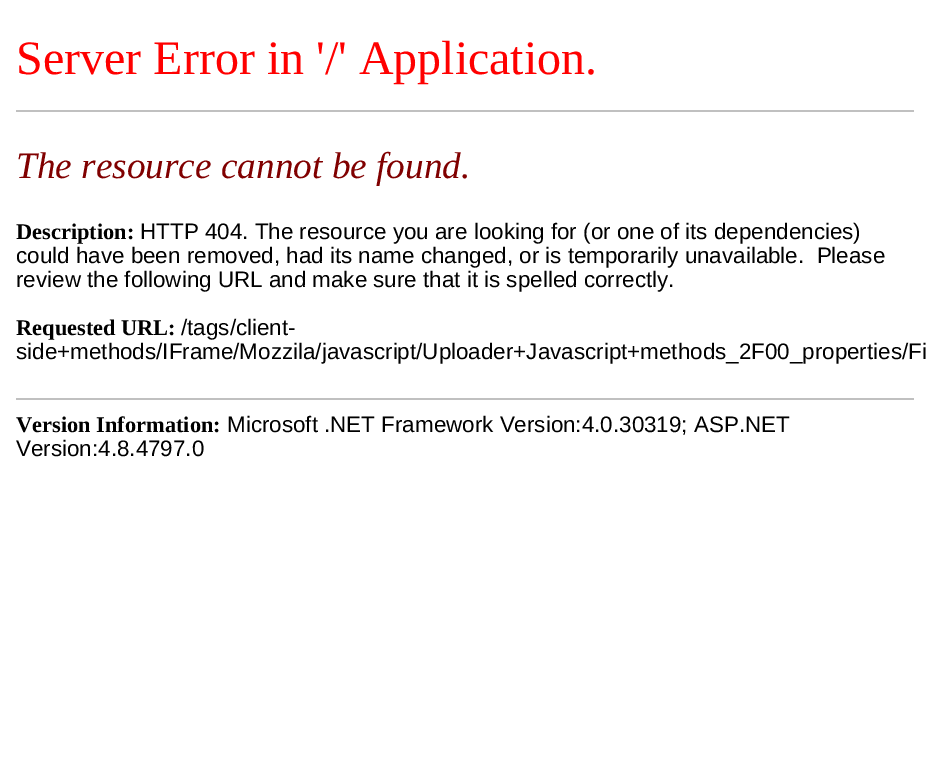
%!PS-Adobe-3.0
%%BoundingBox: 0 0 926 782
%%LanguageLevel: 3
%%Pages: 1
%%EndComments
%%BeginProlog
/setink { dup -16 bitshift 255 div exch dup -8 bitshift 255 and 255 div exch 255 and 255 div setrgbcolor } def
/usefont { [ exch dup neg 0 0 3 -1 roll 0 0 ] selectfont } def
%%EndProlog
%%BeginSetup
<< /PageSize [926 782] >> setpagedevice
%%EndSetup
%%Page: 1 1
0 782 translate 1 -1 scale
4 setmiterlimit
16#FFFFFF setink
0 0 926 782 rectfill
/LiberationSerif-Regular 48 usefont
16#FF0000 setink
16 74 moveto (Server Error in '/' Application.) show
16#C0C0C0 setink
16 110 898 2 rectfill
/LiberationSerif-Italic 37.25 usefont
16#800000 setink
16 178 moveto (The resource cannot be found.) show
/LiberationSerif-Bold 22.4 usefont
16#000000 setink
16 239 moveto (Description:) show
/LiberationSans-Regular 22.4 usefont
[
    [(HTTP 404. The resource you are looking for \(or one of its dependencies\)) 140 239]
    [(could have been removed, had its name changed, or is temporarily unavailable.  Please) 16 263]
    [(review the following URL and make sure that it is spelled correctly.) 16 287]
] { aload pop moveto show } forall
/LiberationSerif-Bold 22.4 usefont
16 335 moveto (Requested URL:) show
/LiberationSans-Regular 22.4 usefont
181 335 moveto (/tags/client-) show
16 359 moveto (side+methods/IFrame/Mozzila/javascript/Uploader+Javascript+methods_2F00_properties/Fi) show
16#C0C0C0 setink
16 398 898 2 rectfill
/LiberationSerif-Bold 22.4 usefont
16#000000 setink
16 432 moveto (Version Information:) show
/LiberationSans-Regular 22.4 usefont
227 432 moveto (Microsoft .NET Framework Version:4.0.30319; ASP.NET) show
16 456 moveto (Version:4.8.4797.0) show
showpage
%%EOF
